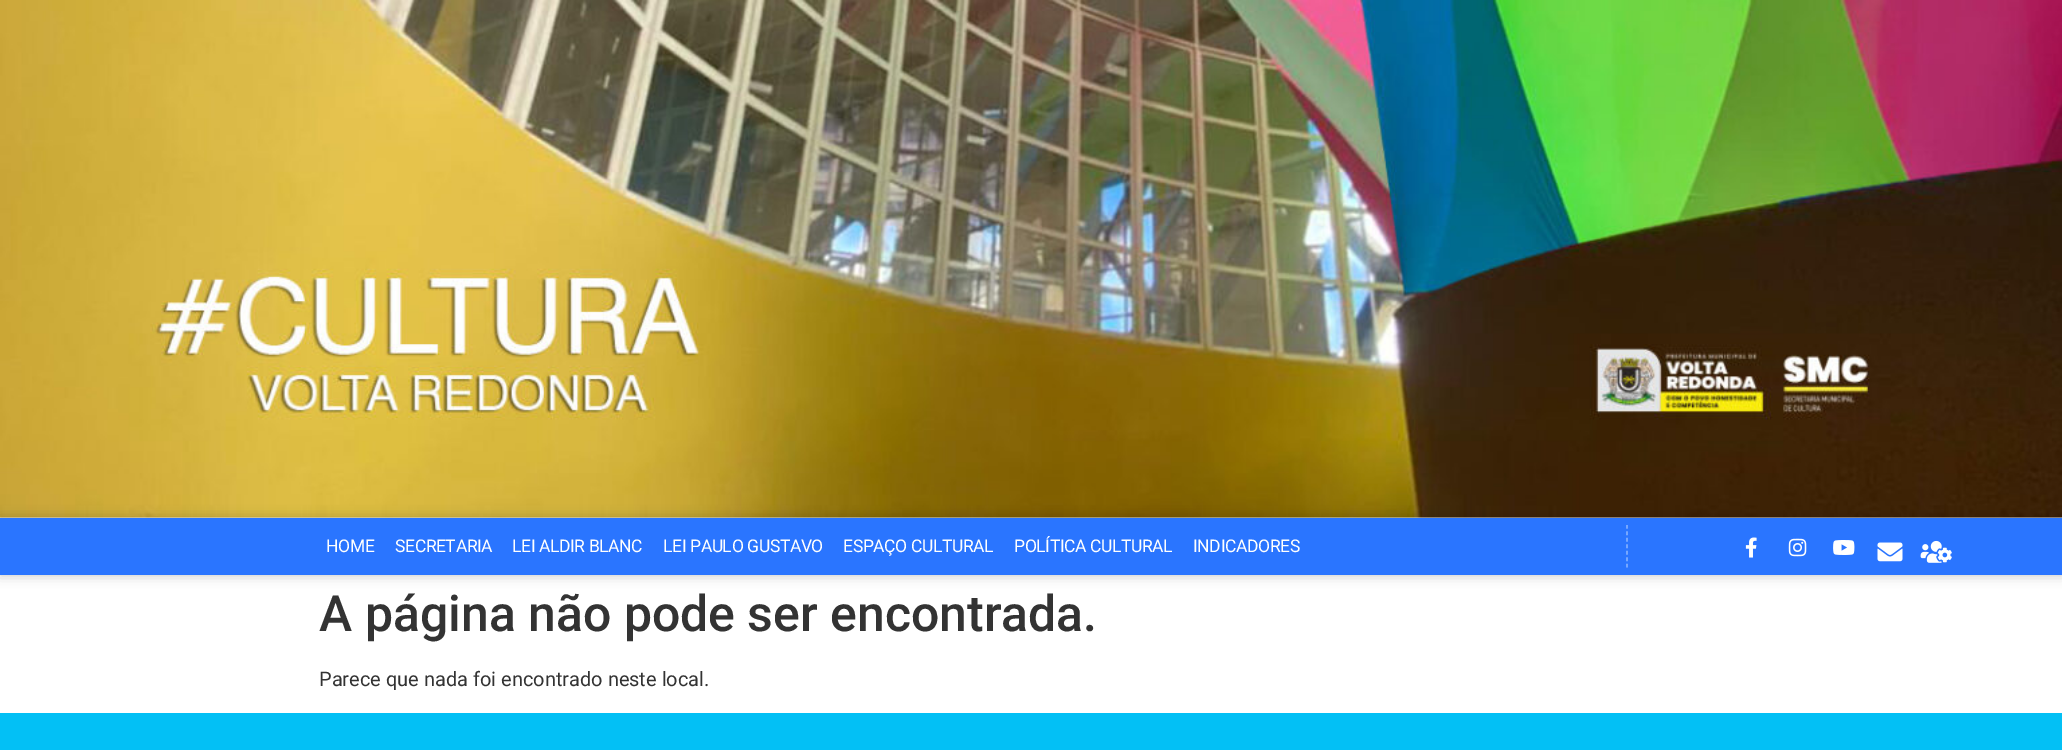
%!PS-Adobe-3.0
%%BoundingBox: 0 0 2062 750
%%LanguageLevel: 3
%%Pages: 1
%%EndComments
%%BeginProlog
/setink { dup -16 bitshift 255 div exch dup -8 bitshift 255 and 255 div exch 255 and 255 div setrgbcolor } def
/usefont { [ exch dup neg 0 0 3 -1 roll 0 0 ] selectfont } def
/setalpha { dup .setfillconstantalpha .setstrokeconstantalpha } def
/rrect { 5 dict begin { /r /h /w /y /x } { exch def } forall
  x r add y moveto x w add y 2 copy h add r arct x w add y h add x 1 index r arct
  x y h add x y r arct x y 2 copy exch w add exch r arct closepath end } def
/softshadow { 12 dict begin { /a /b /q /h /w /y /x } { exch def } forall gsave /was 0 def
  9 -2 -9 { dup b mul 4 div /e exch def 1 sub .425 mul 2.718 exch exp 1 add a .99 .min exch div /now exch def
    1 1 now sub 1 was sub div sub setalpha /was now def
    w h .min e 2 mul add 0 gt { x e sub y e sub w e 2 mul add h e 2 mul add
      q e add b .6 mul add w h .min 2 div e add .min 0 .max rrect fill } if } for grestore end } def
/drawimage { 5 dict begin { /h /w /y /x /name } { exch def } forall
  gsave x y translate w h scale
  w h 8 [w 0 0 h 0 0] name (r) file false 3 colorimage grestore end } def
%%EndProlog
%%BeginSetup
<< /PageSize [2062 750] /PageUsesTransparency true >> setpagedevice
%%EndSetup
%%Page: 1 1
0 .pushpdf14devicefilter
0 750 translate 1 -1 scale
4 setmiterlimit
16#FFFFFF setink
0 0 2062 750 rectfill
(img1.raw) 0 0 2062 518 drawimage
16#000000 setink
0 518 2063 57 0 6 0.23 softshadow
16#2A75FF setink
0 518 2062 57 rectfill
/Roboto-Regular 17.5 usefont
16#FFFFFF setink
326 552 moveto -0.4 0 (HOME) ashow
395 552 moveto -0.4 0 (SECRETARIA) ashow
512 552 moveto -0.4 0 (LEI ALDIR BLANC) ashow
663 552 moveto -0.4 0 (LEI PAULO GUSTAVO) ashow
843 552 moveto -0.4 0 (ESPAÇO CULTURAL) ashow
1014 552 moveto -0.4 0 (POLÍTICA CULTURAL) ashow
1193 552 moveto -0.4 0 (INDICADORES) ashow
16#92B9FF setink
1.2 setlinewidth
[3.75 2.71] 0 setdash
1627 525 moveto 1627 567.5 lineto stroke
(img2.raw) 1745 537 12 21 drawimage
(img3.raw) 1788 538 19 19 drawimage
(img4.raw) 1833 540 22 15 drawimage
(img5.raw) 1877 542 26 20 drawimage
(img6.raw) 1920 540 32 23 drawimage
/Roboto-Medium 50 usefont
16#333333 setink
319 631 moveto (A página não pode ser encontrada.) show
/Roboto-Regular 20 usefont
319 686 moveto (Parece que nada foi encontrado neste local.) show
16#03C0F5 setink
0 713 2062 37 rectfill
.poppdf14devicefilter showpage
%%EOF
